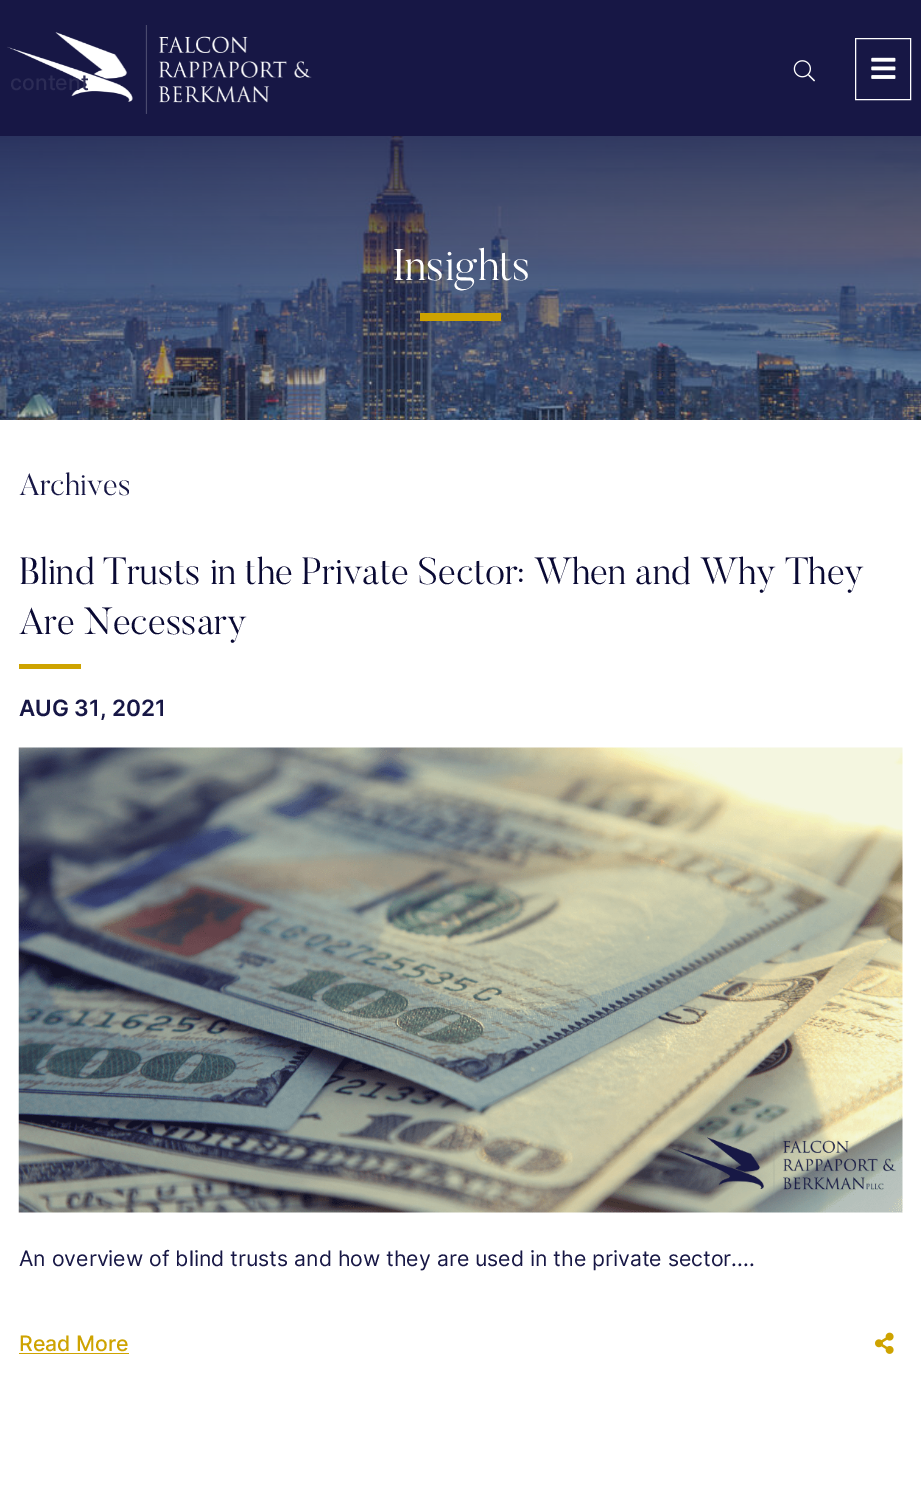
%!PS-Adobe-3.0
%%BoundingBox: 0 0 921 1493
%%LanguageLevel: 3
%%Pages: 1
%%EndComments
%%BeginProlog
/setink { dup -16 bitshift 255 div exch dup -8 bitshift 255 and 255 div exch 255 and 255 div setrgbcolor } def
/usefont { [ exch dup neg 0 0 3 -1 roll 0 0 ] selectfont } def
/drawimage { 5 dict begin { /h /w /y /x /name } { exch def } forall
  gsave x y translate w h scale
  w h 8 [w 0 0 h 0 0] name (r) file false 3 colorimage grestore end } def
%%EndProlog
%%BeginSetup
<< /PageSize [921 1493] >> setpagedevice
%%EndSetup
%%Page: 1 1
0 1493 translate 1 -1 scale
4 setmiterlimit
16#FFFFFF setink
0 0 921 1493 rectfill
16#171745 setink
0 0 921 136 rectfill
(img1.raw) 7 25 305 89 drawimage
/Inter-Medium 21.25 usefont
16#2C2C56 setink
10 90 moveto (content) show
(img2.raw) 793 60 22 22 drawimage
16#FFFFFF setink
855.5 38.5 55 61 rectstroke
(img3.raw) 871 57 25 22 drawimage
(img4.raw) 0 136 921 284 drawimage
/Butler-Light 44 usefont
392 280 moveto (Insights) show
16#CEA300 setink
420 313 81 8 rectfill
/Butler-Light 31 usefont
16#171745 setink
19 495 moveto (Archives) show
/Butler-Light 37.5 usefont
16#0A0A34 setink
19 584 moveto (Blind Trusts in the Private Sector: When and Why They) show
19 634 moveto (Are Necessary) show
16#CEA300 setink
19 664 62 5 rectfill
/Inter-SemiBold 22.5 usefont
16#171745 setink
19 716 moveto (AUG 31, 2021) show
(img5.raw) 18 747 885 466 drawimage
/Inter-Regular 21.25 usefont
19 1266 moveto (An overview of blind trusts and how they are used in the private sector....) show
/Inter-Medium 21.25 usefont
16#CEA300 setink
19 1351 moveto (Read More) show
19 1353 110 1 rectfill
(img6.raw) 875 1332 19 22 drawimage
showpage
%%EOF
